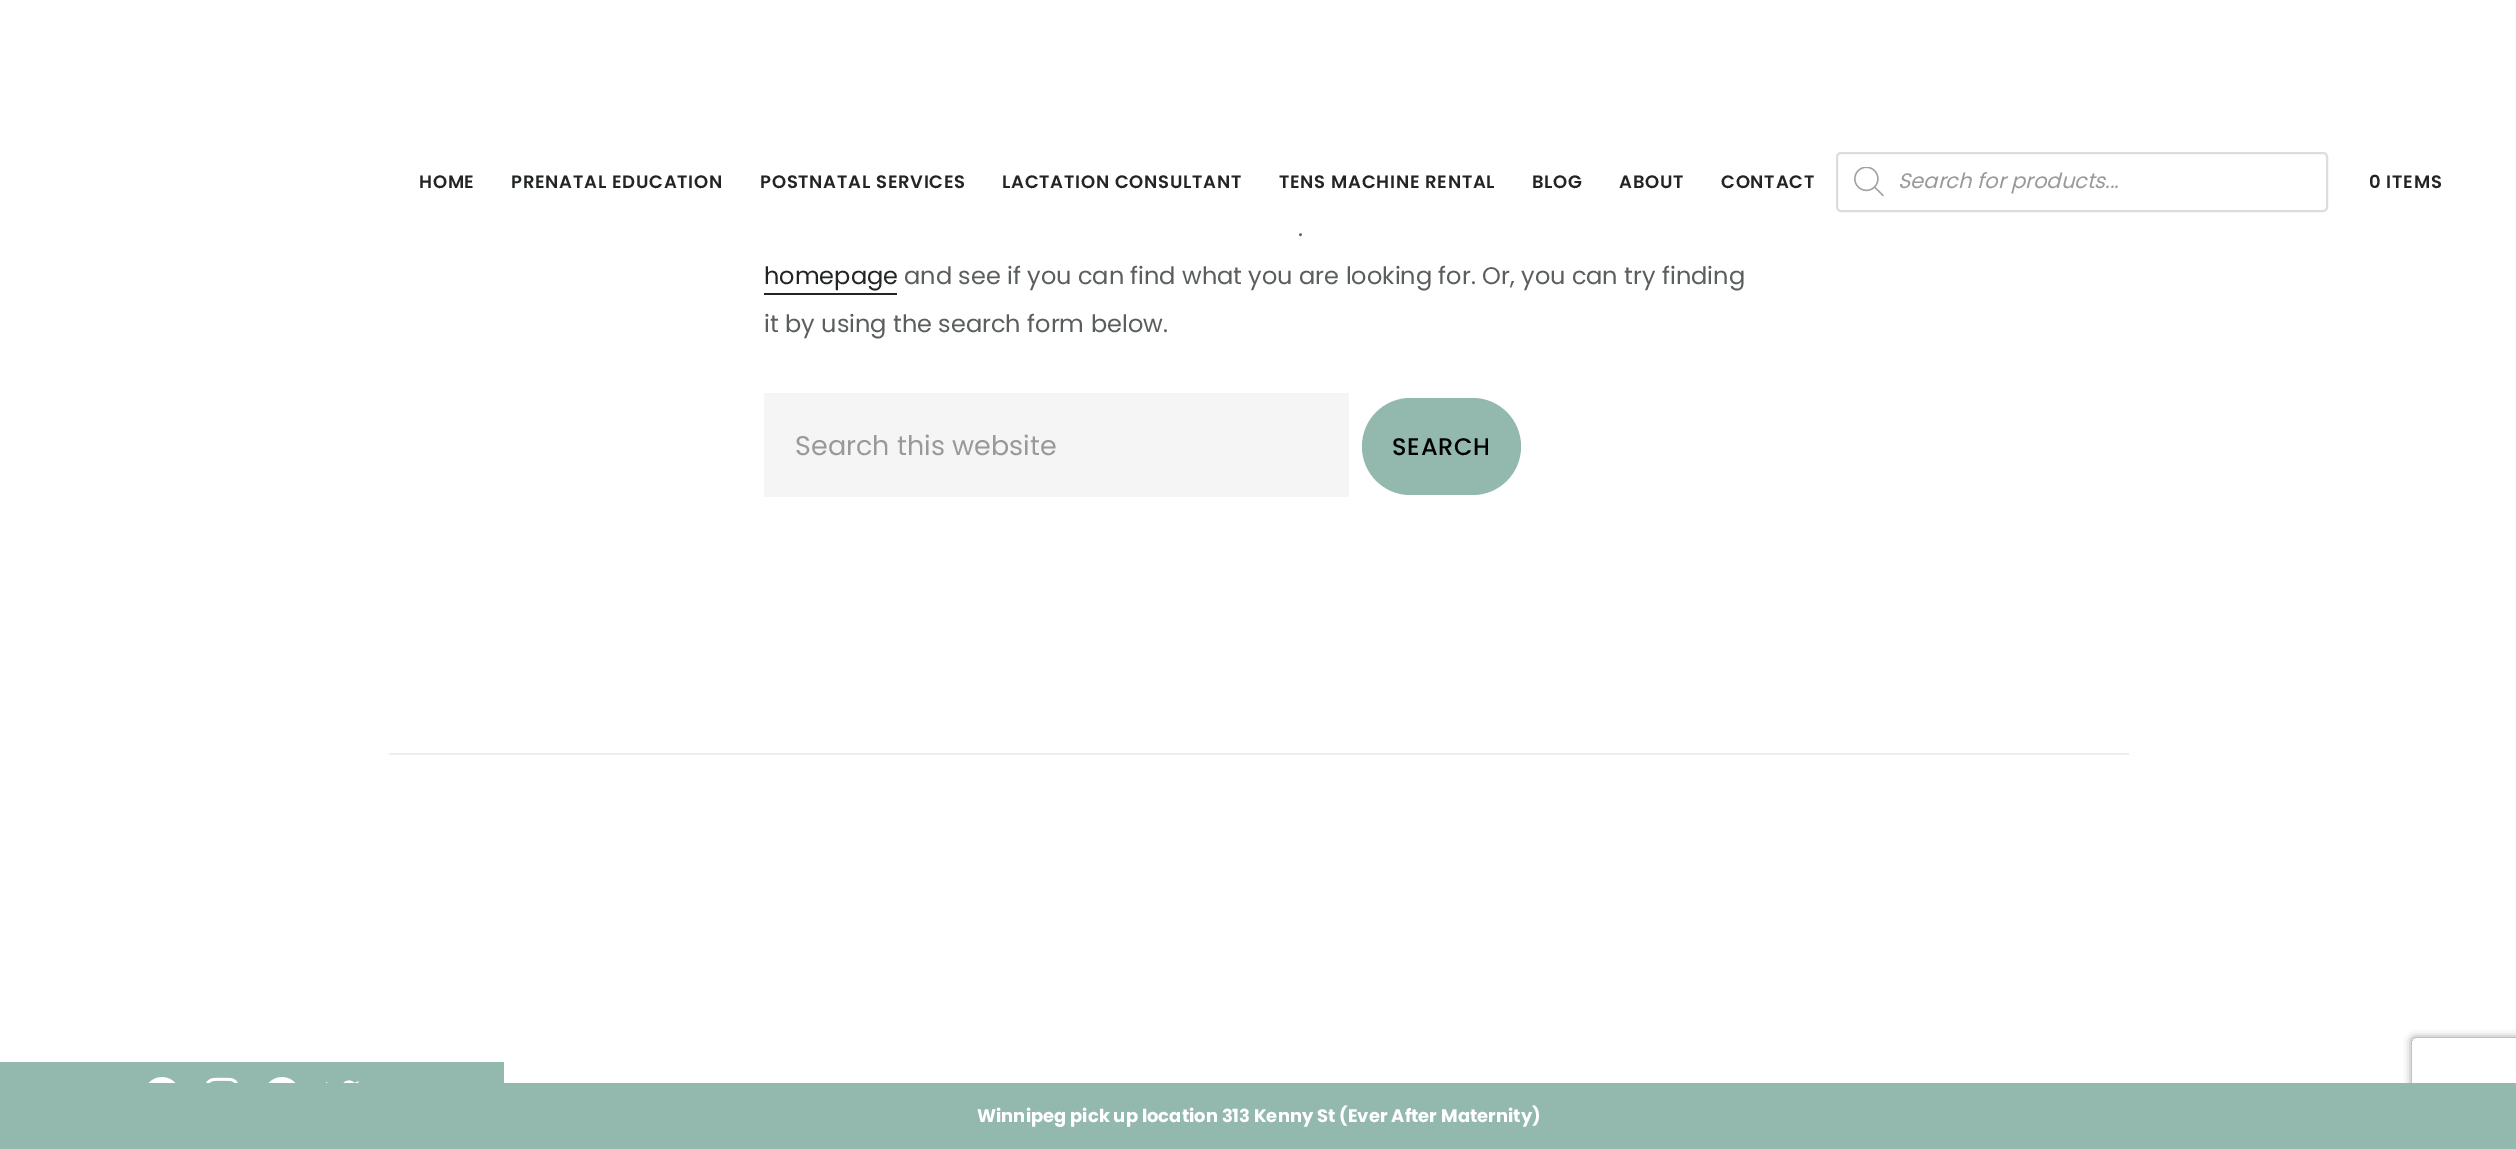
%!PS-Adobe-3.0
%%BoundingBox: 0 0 2516 1149
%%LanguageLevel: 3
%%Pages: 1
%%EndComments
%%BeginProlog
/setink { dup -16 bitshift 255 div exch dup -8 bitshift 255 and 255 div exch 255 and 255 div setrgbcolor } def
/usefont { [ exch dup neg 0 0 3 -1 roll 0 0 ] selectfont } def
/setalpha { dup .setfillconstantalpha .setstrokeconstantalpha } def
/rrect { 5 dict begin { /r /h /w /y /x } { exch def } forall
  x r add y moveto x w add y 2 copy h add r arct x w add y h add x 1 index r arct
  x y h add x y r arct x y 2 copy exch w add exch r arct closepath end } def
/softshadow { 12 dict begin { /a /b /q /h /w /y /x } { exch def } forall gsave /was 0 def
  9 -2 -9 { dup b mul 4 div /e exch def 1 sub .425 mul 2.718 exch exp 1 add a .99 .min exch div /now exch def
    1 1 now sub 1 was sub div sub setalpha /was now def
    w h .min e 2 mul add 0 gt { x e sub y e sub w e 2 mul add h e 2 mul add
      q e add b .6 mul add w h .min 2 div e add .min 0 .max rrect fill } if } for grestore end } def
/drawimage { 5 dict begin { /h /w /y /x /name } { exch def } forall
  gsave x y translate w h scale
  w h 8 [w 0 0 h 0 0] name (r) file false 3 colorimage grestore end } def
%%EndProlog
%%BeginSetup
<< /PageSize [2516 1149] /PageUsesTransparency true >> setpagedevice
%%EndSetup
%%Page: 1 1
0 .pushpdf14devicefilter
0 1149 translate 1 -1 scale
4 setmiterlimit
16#FFFFFF setink
0 0 2516 1149 rectfill
/Poppins-SemiBold 18 usefont
16#232525 setink
419 188 moveto 0.75 0 (HOME) ashow
511 188 moveto 0.75 0 (PRENATAL EDUCATION) ashow
760 188 moveto 0.75 0 (POSTNATAL SERVICES) ashow
1002 188 moveto 0.75 0 (LACTATION CONSULTANT) ashow
1279 188 moveto 0.75 0 (TENS MACHINE RENTAL) ashow
1532 188 moveto 0.75 0 (BLOG) ashow
1619 188 moveto 0.75 0 (ABOUT) ashow
1721 188 moveto 0.75 0 (CONTACT) ashow
16#DDDDDD setink
2 setlinewidth
1837 153 490 58 4 rrect stroke
(img1.raw) 1854 167 30 30 drawimage
/Poppins-Italic 21 usefont
16#999999 setink
1898 188 moveto (Search for products...) show
/Poppins-SemiBold 18 usefont
16#232525 setink
2369 188 moveto 0.75 0 (0 ITEMS) ashow
16#EEEEEE setink
389 753 1740 2 rectfill
/Poppins-Regular 24 usefont
16#5B5E5E setink
1298 236 moveto (.) show
16#232525 setink
764 284 moveto (homepage) show
764 293 133 2 rectfill
16#5B5E5E setink
904 284 moveto (and see if you can find what you are looking for. Or, you can try finding) show
764 332 moveto (it by using the search form below.) show
16#F5F5F5 setink
764 393 585 104 rectfill
/Poppins-Regular 27 usefont
16#999999 setink
795 455 moveto (Search this website) show
16#93B8AD setink
1362 398 159 97 48.5 rrect fill
/Poppins-Medium 24 usefont
16#000000 setink
1392 455 moveto 0.75 0 (SEARCH) ashow
16#93B8AD setink
0 1062 504 21 rectfill
(img2.raw) 148 1077 28 6 drawimage
(img3.raw) 206 1077 32 6 drawimage
(img4.raw) 268 1077 28 6 drawimage
(img5.raw) 326 1080 33 3 drawimage
gsave
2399 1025 moveto 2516 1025 lineto 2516 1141 lineto 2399 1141 lineto closepath 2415 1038 moveto 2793 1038 lineto 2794.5 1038 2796 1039.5 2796 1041 curveto 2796 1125 lineto 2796 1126.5 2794.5 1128 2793 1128 curveto 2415 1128 lineto 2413.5 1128 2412 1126.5 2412 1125 curveto 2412 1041 lineto 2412 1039.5 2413.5 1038 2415 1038 curveto closepath eoclip newpath
16#808080 setink
2412 1038 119 90 3 4 1 softshadow
grestore
0 1083 2516 66 rectfill
/Poppins-Bold 18 usefont
16#FFFFFF setink
977 1122 moveto (Winnipeg pick up location 313 Kenny St \(Ever After Maternity\)) show
.poppdf14devicefilter showpage
%%EOF
